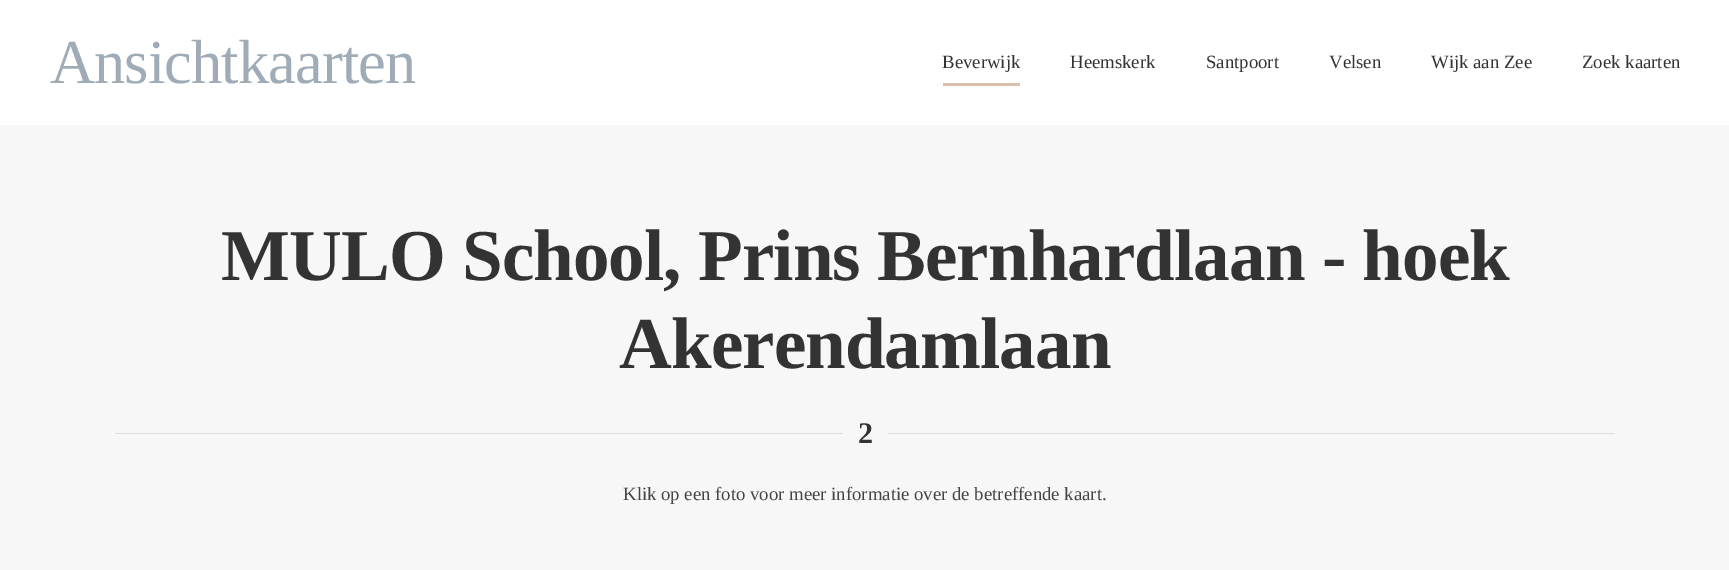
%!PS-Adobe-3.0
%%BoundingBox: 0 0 1729 570
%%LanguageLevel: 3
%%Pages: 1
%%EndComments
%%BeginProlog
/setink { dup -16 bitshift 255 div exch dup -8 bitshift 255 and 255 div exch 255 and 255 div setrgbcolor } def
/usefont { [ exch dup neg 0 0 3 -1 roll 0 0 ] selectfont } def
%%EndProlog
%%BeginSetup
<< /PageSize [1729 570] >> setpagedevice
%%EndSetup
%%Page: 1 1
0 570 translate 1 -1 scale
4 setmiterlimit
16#FFFFFF setink
0 0 1729 570 rectfill
/LiberationSerif-Regular 62.5 usefont
16#9FACB8 setink
50 83 moveto -0.95 0 (Ansichtkaarten) ashow
/LiberationSerif-Regular 18.75 usefont
16#333333 setink
942 68 moveto (Beverwijk) show
16#D7C0AE setink
943 83 77 3 rectfill
16#333333 setink
[
    [(Heemskerk) 1070 68]
    [(Santpoort) 1206 68]
    [(Velsen) 1329 68]
    [(Wijk aan Zee) 1431 68]
    [(Zoek kaarten) 1582 68]
] { aload pop moveto show } forall
16#F7F7F7 setink
0 125 1729 445 rectfill
/LiberationSerif-Bold 73.1 usefont
16#333333 setink
221 280 moveto -0.95 0 (MULO School, Prins Bernhardlaan - hoek) ashow
619 368 moveto -0.95 0 (Akerendamlaan) ashow
16#DEDEDE setink
115 433 728 1 rectfill
/LiberationSerif-Bold 30 usefont
16#333333 setink
858 443 moveto -0.95 0 (2) ashow
16#DEDEDE setink
888 433 727 1 rectfill
/LiberationSerif-Regular 18.75 usefont
16#444444 setink
623 500 moveto (Klik op een foto voor meer informatie over de betreffende kaart.) show
showpage
%%EOF
